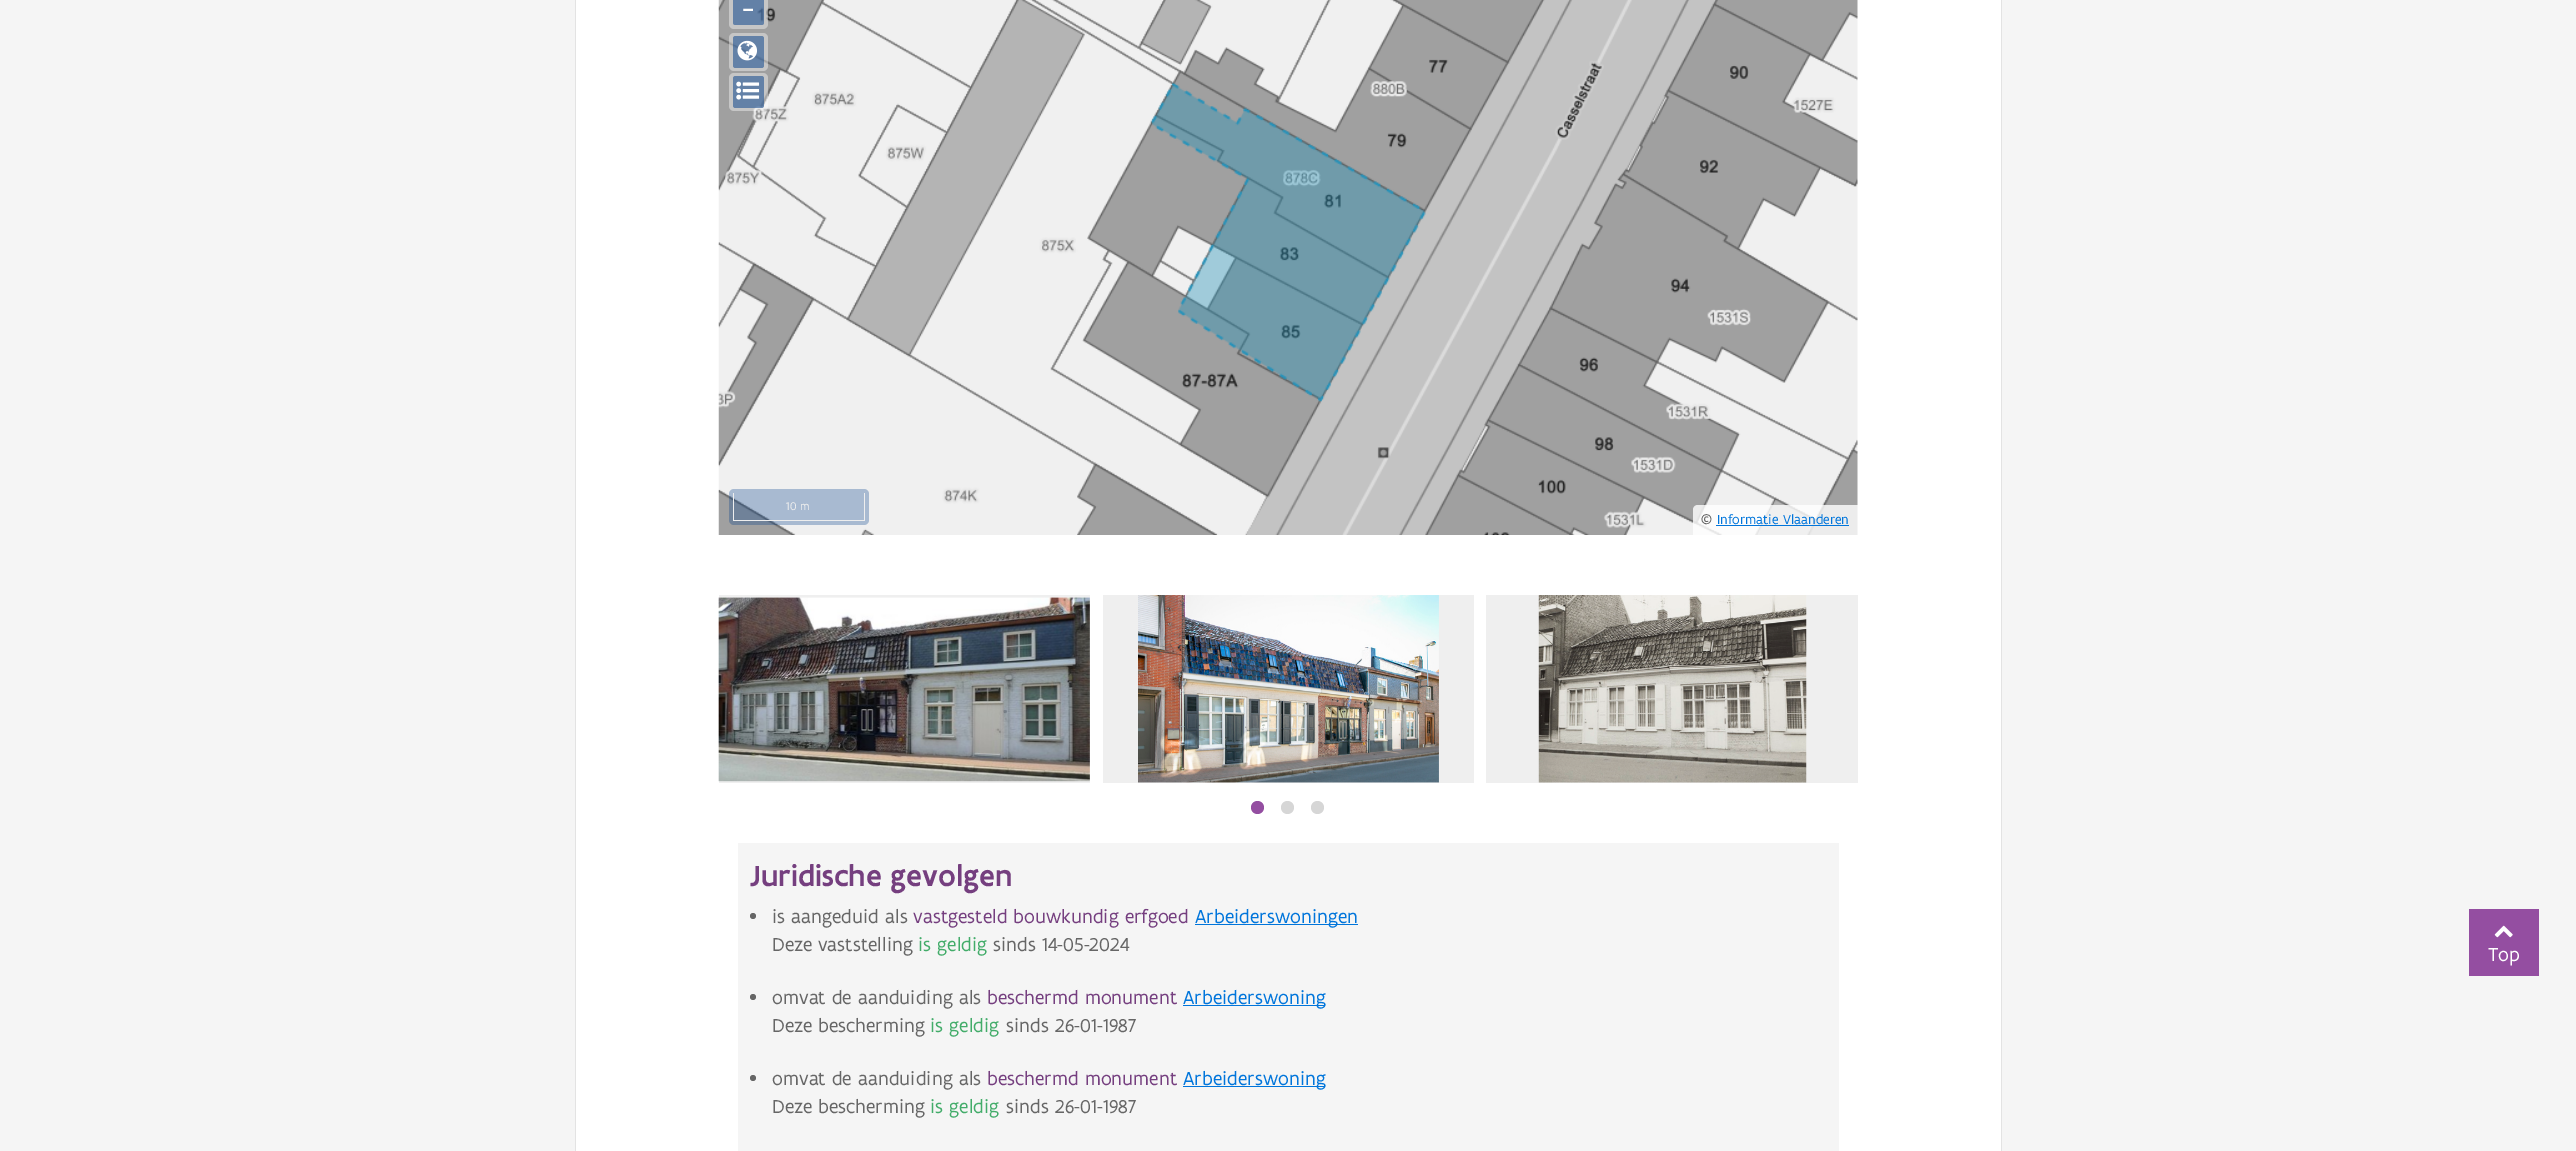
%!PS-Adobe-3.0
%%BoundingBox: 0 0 2576 1151
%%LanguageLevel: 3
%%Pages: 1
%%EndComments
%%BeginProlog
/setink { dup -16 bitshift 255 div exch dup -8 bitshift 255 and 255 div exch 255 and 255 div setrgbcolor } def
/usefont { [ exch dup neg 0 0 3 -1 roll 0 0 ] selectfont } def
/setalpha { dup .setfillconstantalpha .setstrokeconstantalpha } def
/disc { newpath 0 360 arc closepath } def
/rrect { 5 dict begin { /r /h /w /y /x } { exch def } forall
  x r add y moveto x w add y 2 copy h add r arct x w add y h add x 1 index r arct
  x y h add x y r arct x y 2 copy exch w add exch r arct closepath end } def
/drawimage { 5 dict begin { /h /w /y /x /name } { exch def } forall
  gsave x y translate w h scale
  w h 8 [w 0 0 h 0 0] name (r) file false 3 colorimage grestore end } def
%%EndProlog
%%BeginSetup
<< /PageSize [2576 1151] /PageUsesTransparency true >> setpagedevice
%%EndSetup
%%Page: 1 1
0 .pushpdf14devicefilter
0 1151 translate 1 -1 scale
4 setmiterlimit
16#F5F5F5 setink
0 0 2576 1151 rectfill
16#FFFFFF setink
576 0 1425 1151 rectfill
16#E3E3E3 setink
2002 -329 moveto 2002 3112 lineto 2001 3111 lineto 2001 -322 lineto closepath fill
575 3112 moveto 575 -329 lineto 576 -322 lineto 576 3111 lineto closepath fill
(img1.raw) 718 0 1140 535 drawimage
0.4 setalpha
16#FFFFFF setink
729 -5 39 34 5 rrect fill
0.5 setalpha
16#003C88 setink
733 -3 moveto 764 -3 lineto 764 22.5 lineto 764 24 763 25 761.5 25 curveto 735.5 25 lineto 734 25 733 24 733 22.5 curveto closepath fill
/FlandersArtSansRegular-Bold 23 usefont
1 setalpha
16#FFFFFF setink
742 16 moveto (−) show
0.4 setalpha
729 33 39 38 5 rrect fill
0.5 setalpha
16#003C88 setink
733 36 31 32 2.5 rrect fill
1 setalpha
(img2.raw) 737 40 21 21 drawimage
0.4 setalpha
16#FFFFFF setink
729 73 39 38 5 rrect fill
0.5 setalpha
16#003C88 setink
733 76 31 32 2.5 rrect fill
1 setalpha
(img3.raw) 736 81 24 19 drawimage
0.3 setalpha
729 489 140 36 5 rrect fill
1 setalpha
[
    [864 493 1 28 16#EEEEEE]
    [733 520 132 1 16#EEEEEE]
    [733 493 1 28 16#EEEEEE]
] { aload pop setink rectfill } forall
/FlandersArtSansRegular-Regular 12 usefont
786 510 moveto (10 m) show
0.8 setalpha
16#FFFFFF setink
1698 505 moveto 1858 505 lineto 1858 535 lineto 1693 535 lineto 1693 510 lineto 1693 507 1695 505 1698 505 curveto closepath fill
/FlandersArtSansRegular-Regular 14 usefont
1 setalpha
16#666666 setink
1701 524 moveto (©) show
16#0075DB setink
1717 524 moveto (Informatie Vlaanderen) show
1716 525 133 1 rectfill
16#EFEFEF setink
719 595 371 188 rectfill
(img4.raw) 718 597 372 185 drawimage
1103 595 371 188 rectfill
(img5.raw) 1138 595 301 188 drawimage
1486 595 372 188 rectfill
(img6.raw) 1538 595 269 188 drawimage
16#944EA1 setink
1257.5 807.5 6.5 disc fill
16#D6D6D6 setink
1287.5 807.5 6.5 disc fill
1317.5 807.5 6.5 disc fill
16#F5F5F5 setink
738 843 1101 308 rectfill
/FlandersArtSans-Medium 31.25 usefont
16#753F7F setink
750 886 moveto (Juridische gevolgen) show
16#666666 setink
753 916 3 disc fill
/FlandersArtSansRegular-Regular 20 usefont
772 923 moveto (is aangeduid als) show
16#753F7F setink
913 923 moveto (vastgesteld bouwkundig erfgoed) show
16#0075DB setink
1195 924 163 1 rectfill
1195 923 moveto (Arbeiderswoningen) show
16#666666 setink
772 951 moveto (Deze vaststelling) show
16#43AC6A setink
918 951 moveto (is geldig) show
16#666666 setink
993 951 moveto (sinds 14-05-2024) show
753 997 3 disc fill
772 1004 moveto (omvat de aanduiding als) show
16#753F7F setink
987 1004 moveto (beschermd monument) show
16#0075DB setink
1183 1005 142 1 rectfill
1183 1004 moveto (Arbeiderswoning) show
16#666666 setink
772 1032 moveto (Deze bescherming) show
16#43AC6A setink
930 1032 moveto (is geldig) show
16#666666 setink
1006 1032 moveto (sinds 26-01-1987) show
753 1078 3 disc fill
772 1085 moveto (omvat de aanduiding als) show
16#753F7F setink
987 1085 moveto (beschermd monument) show
16#0075DB setink
1183 1086 142 1 rectfill
1183 1085 moveto (Arbeiderswoning) show
16#666666 setink
772 1113 moveto (Deze bescherming) show
16#43AC6A setink
930 1113 moveto (is geldig) show
16#666666 setink
1006 1113 moveto (sinds 26-01-1987) show
16#944EA1 setink
2469 909 70 67 rectfill
(img7.raw) 2494 925 19 13 drawimage
16#FFFFFF setink
2488 961 moveto (Top) show
.poppdf14devicefilter showpage
%%EOF
